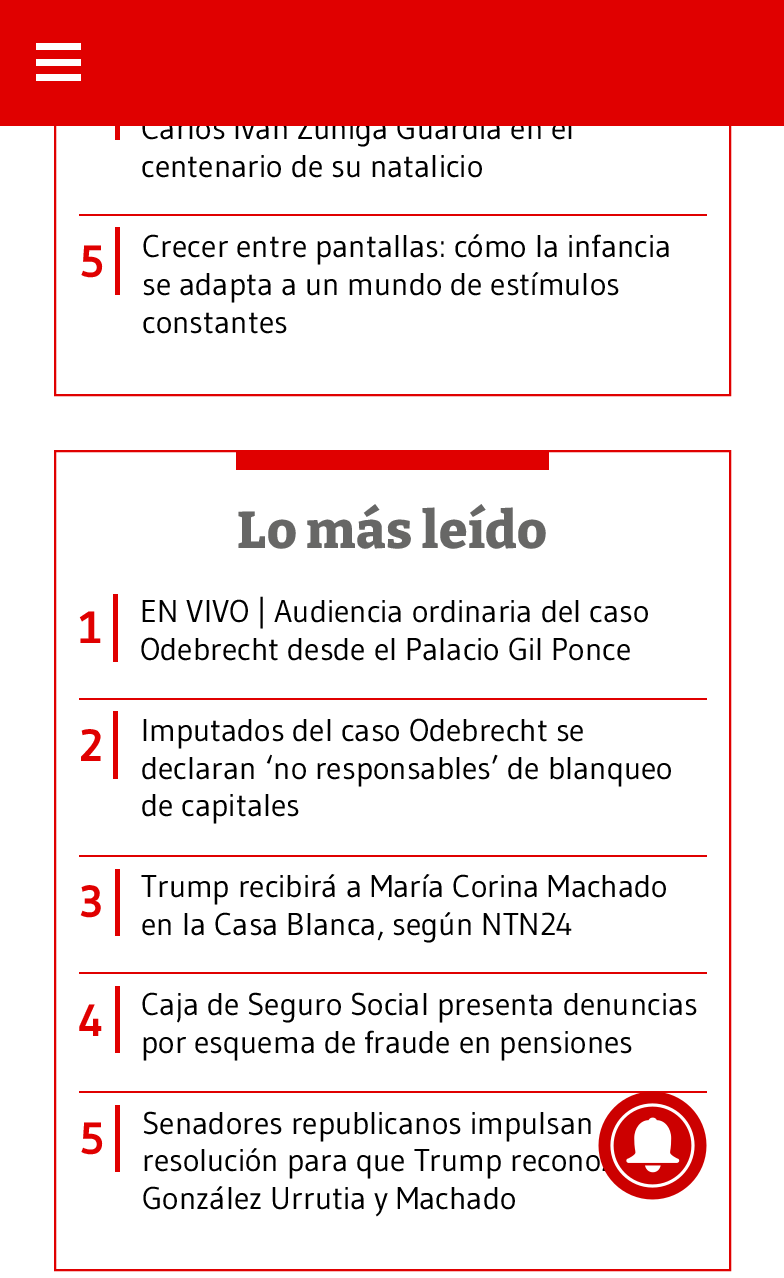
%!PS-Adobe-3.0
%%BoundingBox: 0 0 784 1278
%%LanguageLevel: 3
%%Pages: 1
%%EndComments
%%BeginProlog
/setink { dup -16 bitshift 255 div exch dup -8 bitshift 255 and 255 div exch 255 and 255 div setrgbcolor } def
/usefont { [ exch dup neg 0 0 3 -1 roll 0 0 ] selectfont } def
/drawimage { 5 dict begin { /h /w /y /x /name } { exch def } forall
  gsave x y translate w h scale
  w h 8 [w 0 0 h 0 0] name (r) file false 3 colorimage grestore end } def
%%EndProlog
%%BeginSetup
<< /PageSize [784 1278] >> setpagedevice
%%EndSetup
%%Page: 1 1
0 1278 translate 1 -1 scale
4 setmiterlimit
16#FFFFFF setink
0 0 784 1278 rectfill
16#E00000 setink
2 setlinewidth
55 -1 675 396 rectstroke
/Gudea-Regular 31.5 usefont
16#000000 setink
141 139 moveto (Carlos Iván Zúñiga Guardia en el) show
[
    [0 0 784 126 16#E00000]
    [36 43 45 7 16#FFFFFF]
    [36 59 45 7 16#FFFFFF]
    [36 74 45 7 16#FFFFFF]
    [79 214 628 2 16#E00000]
    [115 126 5 14 16#E00000]
] { aload pop setink rectfill } forall
16#000000 setink
141 177 moveto (centenario de su natalicio) show
16#E00000 setink
115 227 5 68 rectfill
/Gudea-Bold 45 usefont
79 277 moveto (5) show
/Gudea-Regular 31.5 usefont
16#000000 setink
[
    [(Crecer entre pantallas: cómo la infancia) 142 257]
    [(se adapta a un mundo de estímulos) 142 295]
    [(constantes) 142 333]
] { aload pop moveto show } forall
16#E00000 setink
55 451 675 819 rectstroke
236 452 313 18 rectfill
/Bitter-ExtraBold 51.75 usefont
16#676766 setink
237 548 moveto 0.5 0 (Lo más leído) ashow
16#E00000 setink
79 698 628 2 rectfill
113 594 5 68 rectfill
/Gudea-Bold 45 usefont
79 643 moveto (1) show
/Gudea-Regular 31.5 usefont
16#000000 setink
140 622 moveto (EN VIVO | Audiencia ordinaria del caso) show
140 660 moveto (Odebrecht desde el Palacio Gil Ponce) show
16#E00000 setink
79 855 628 2 rectfill
113 711 5 68 rectfill
/Gudea-Bold 45 usefont
79 761 moveto (2) show
/Gudea-Regular 31.5 usefont
16#000000 setink
[
    [(Imputados del caso Odebrecht se) 141 741]
    [(declaran ‘no responsables’ de blanqueo) 141 779]
    [(de capitales) 141 816]
] { aload pop moveto show } forall
16#E00000 setink
79 972 628 2 rectfill
115 869 5 67 rectfill
/Gudea-Bold 45 usefont
79 917 moveto (3) show
/Gudea-Regular 31.5 usefont
16#000000 setink
141 897 moveto (Trump recibirá a María Corina Machado) show
141 935 moveto (en la Casa Blanca, según NTN24) show
16#E00000 setink
79 1091 628 2 rectfill
115 986 5 67 rectfill
/Gudea-Bold 45 usefont
79 1036 moveto (4) show
/Gudea-Regular 31.5 usefont
16#000000 setink
141 1015 moveto (Caja de Seguro Social presenta denuncias) show
141 1053 moveto (por esquema de fraude en pensiones) show
16#E00000 setink
115 1105 5 67 rectfill
/Gudea-Bold 45 usefont
79 1154 moveto (5) show
/Gudea-Regular 31.5 usefont
16#000000 setink
[
    [(Senadores republicanos impulsan) 142 1134]
    [(resolución para que Trump recono) 142 1171]
    [(González Urrutia y Machado) 142 1209]
] { aload pop moveto show } forall
(img1.raw) 598 1091 109 109 drawimage
showpage
%%EOF
